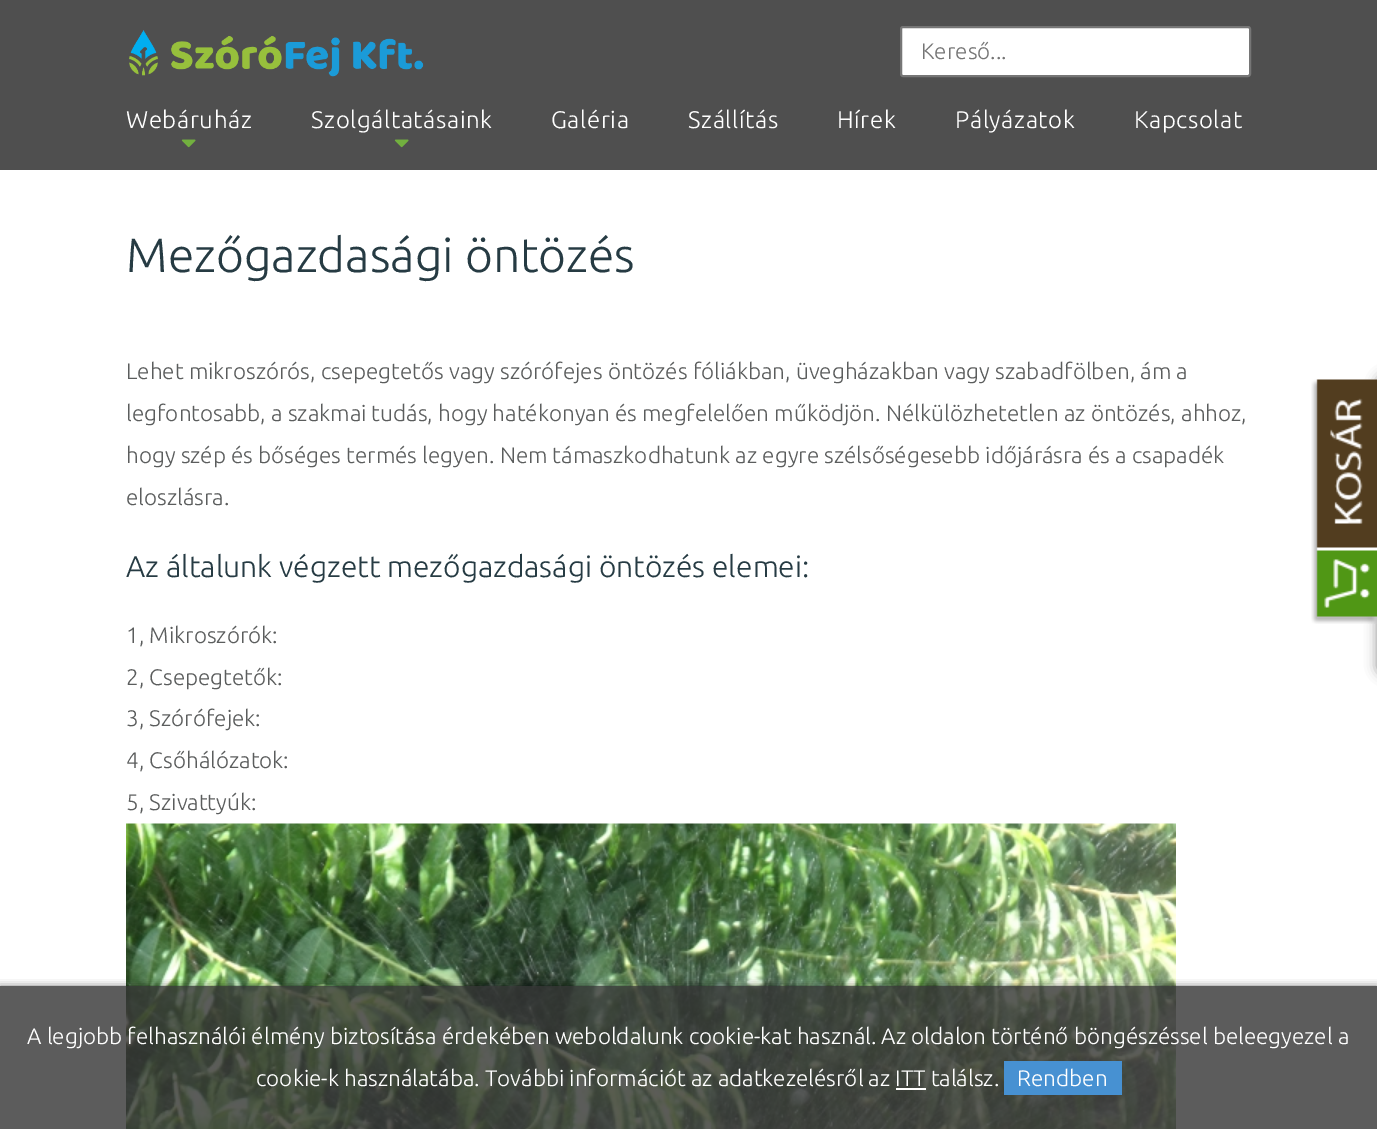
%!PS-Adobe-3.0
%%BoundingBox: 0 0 1377 1129
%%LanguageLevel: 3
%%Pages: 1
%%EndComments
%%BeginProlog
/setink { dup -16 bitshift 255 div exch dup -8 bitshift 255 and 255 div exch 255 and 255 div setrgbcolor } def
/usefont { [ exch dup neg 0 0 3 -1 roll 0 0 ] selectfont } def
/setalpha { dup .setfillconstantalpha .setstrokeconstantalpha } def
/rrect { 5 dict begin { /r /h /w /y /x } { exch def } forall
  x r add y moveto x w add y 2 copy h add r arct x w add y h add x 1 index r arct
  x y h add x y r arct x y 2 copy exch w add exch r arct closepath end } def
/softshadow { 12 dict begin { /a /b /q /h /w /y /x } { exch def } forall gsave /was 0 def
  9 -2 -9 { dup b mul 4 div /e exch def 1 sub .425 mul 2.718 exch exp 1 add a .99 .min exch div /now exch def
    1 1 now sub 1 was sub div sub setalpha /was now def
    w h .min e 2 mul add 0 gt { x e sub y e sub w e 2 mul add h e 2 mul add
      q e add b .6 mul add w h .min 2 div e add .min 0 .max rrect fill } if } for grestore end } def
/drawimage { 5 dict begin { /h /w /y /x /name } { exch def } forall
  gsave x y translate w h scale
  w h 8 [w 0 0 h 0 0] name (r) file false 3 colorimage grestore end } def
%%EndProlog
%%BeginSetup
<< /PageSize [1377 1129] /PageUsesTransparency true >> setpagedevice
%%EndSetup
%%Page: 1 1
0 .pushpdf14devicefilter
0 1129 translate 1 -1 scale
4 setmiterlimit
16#FFFFFF setink
0 0 1377 1129 rectfill
16#4F4F4F setink
0 0 1377 170 rectfill
(img1.raw) 129 30 295 47 drawimage
16#FFFFFF setink
901 27 349 49 2 rrect gsave fill grestore
16#767676 setink
2 setlinewidth
stroke
/Ubuntu-Light 22.5 usefont
16#757575 setink
921 59 moveto (Kereső...) show
/Ubuntu-Light 24 usefont
16#FFFFFF setink
126 128 moveto 0.6 0 (Webáruház) ashow
(img2.raw) 181 139 15 9 drawimage
311 128 moveto 0.6 0 (Szolgáltatásaink) ashow
(img2.raw) 394 139 15 9 drawimage
551 128 moveto 0.6 0 (Galéria) ashow
688 128 moveto 0.6 0 (Szállítás) ashow
837 128 moveto 0.6 0 (Hírek) ashow
955 128 moveto 0.6 0 (Pályázatok) ashow
1134 128 moveto 0.6 0 (Kapcsolat) ashow
/Ubuntu-Light 48 usefont
16#263B43 setink
126 272 moveto (Mezőgazdasági öntözés) show
/Ubuntu-Light 22.5 usefont
16#5B5D5D setink
[
    [(Lehet mikroszórós, csepegtetős vagy szórófejes öntözés fóliákban, üvegházakban vagy szabadfölben, ám a) 126 379]
    [(legfontosabb, a szakmai tudás, hogy hatékonyan és megfelelően működjön. Nélkülözhetetlen az öntözés, ahhoz,) 126 421]
    [(hogy szép és bőséges termés legyen. Nem támaszkodhatunk az egyre szélsőségesebb időjárásra és a csapadék) 126 463]
    [(eloszlásra.) 126 505]
] { aload pop moveto show } forall
/Ubuntu-Light 30 usefont
16#263B43 setink
126 577 moveto (Az általunk végzett mezőgazdasági öntözés elemei:) show
/Ubuntu-Light 22.5 usefont
16#5B5D5D setink
[
    [(1, Mikroszórók:) 126 643]
    [(2, Csepegtetők:) 126 685]
    [(3, Szórófejek:) 126 726]
    [(4, Csőhálózatok:) 126 768]
    [(5, Szivattyúk:) 126 810]
] { aload pop moveto show } forall
(img3.raw) 126 823 1050 306 drawimage
16#8E8E8E setink
1377 375 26 300 8 6 1 softshadow
(img4.raw) 1311 379 66 245 drawimage
gsave
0 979 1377 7 rectclip
16#000000 setink
0 986 1377 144 0 4 0.5 softshadow
grestore
0.8 setalpha
16#333333 setink
0 986 1377 143 rectfill
1 setalpha
16#FFFFFF setink
27 1044 moveto (A legjobb felhasználói élmény biztosítása érdekében weboldalunk cookie-kat használ. Az oldalon történő böngészéssel beleegyezel a) show
256 1086 moveto (cookie-k használatába. További információt az adatkezelésről az ITT találsz.) show
16#4791D2 setink
1004 1061 118 34 rectfill
16#FFFFFF setink
1017 1086 moveto (Rendben) show
896 1088 30 2 rectfill
.poppdf14devicefilter showpage
%%EOF
